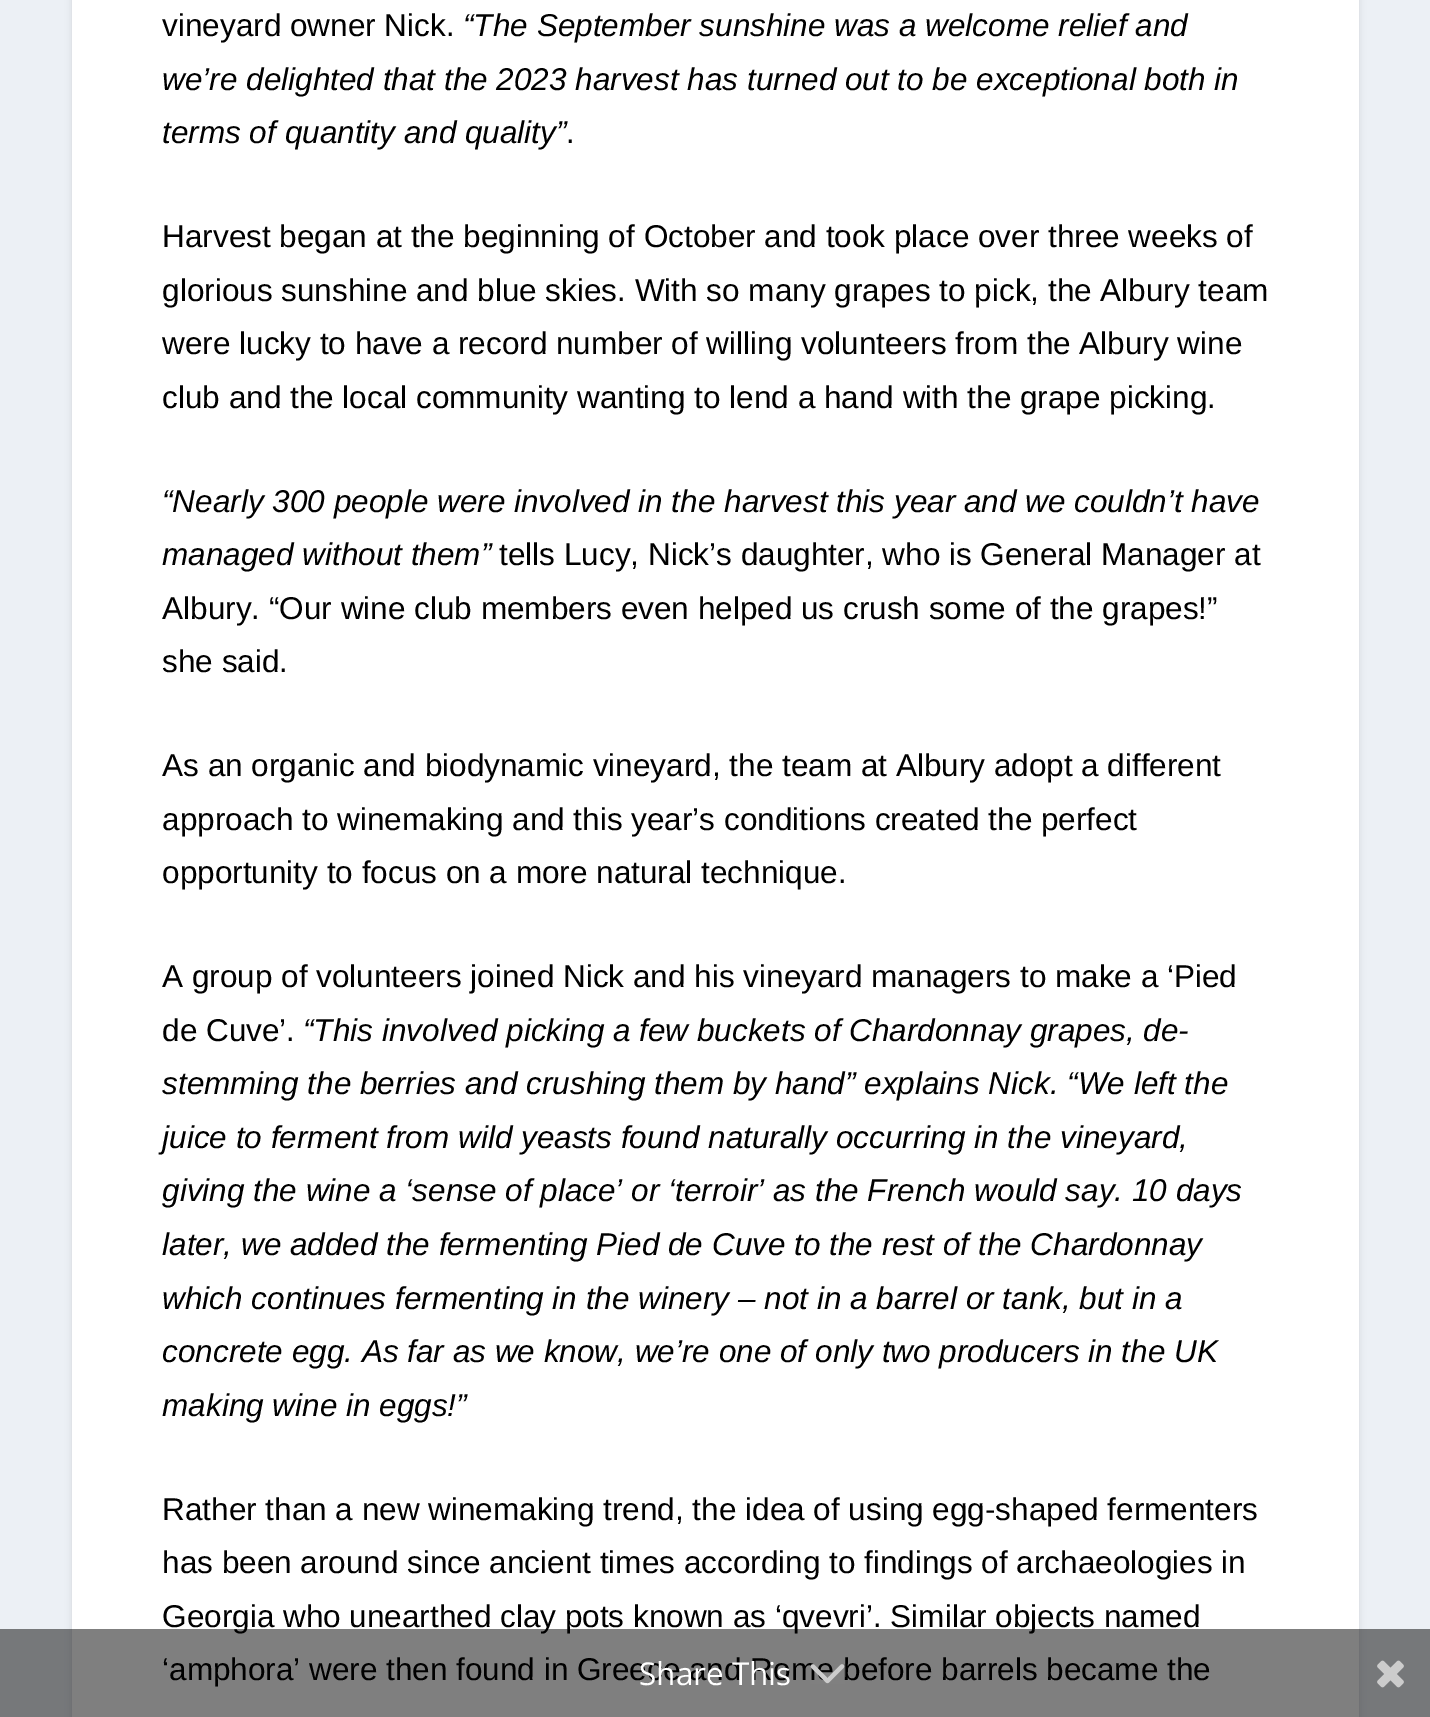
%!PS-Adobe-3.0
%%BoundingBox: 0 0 1430 1717
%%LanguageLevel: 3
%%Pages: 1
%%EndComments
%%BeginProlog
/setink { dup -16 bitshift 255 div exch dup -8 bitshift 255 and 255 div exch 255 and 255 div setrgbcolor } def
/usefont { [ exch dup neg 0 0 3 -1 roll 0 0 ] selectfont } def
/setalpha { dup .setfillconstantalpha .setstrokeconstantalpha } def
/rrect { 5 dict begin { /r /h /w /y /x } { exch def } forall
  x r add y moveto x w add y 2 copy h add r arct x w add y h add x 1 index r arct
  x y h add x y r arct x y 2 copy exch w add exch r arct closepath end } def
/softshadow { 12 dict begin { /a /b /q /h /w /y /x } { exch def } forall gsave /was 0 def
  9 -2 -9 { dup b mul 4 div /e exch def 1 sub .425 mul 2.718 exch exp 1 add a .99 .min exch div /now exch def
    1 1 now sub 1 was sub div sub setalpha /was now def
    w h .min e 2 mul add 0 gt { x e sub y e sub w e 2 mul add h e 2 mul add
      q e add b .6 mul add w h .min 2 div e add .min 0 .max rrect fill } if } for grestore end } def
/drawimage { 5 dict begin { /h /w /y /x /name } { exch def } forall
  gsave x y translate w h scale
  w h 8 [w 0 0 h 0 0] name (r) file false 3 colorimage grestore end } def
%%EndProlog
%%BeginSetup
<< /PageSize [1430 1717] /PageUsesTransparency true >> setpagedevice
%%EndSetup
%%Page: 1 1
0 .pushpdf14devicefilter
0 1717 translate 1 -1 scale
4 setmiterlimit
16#ECF0F5 setink
0 0 1430 1717 rectfill
16#000000 setink
72 -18 1287 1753 7 3.5 0.1 softshadow
16#FFFFFF setink
72 0 1287 1717 rectfill
/LiberationSans-Regular 31.5 usefont
16#000000 setink
162 36 moveto (vineyard owner Nick.) show
/LiberationSans-Italic 31.5 usefont
[
    [(“The September sunshine was a welcome relief and) 463 36]
    [(we’re delighted that the 2023 harvest has turned out to be exceptional both in) 162 90]
    [(terms of quantity and quality”) 162 143]
] { aload pop moveto show } forall
/LiberationSans-Regular 31.5 usefont
[
    [(.) 566 143]
    [(Harvest began at the beginning of October and took place over three weeks of) 162 247]
    [(glorious sunshine and blue skies. With so many grapes to pick, the Albury team) 162 301]
    [(were lucky to have a record number of willing volunteers from the Albury wine) 162 354]
    [(club and the local community wanting to lend a hand with the grape picking.) 162 408]
] { aload pop moveto show } forall
/LiberationSans-Italic 31.5 usefont
162 512 moveto (“Nearly 300 people were involved in the harvest this year and we couldn’t have) show
162 565 moveto (managed without them”) show
/LiberationSans-Regular 31.5 usefont
[
    [(tells Lucy, Nick’s daughter, who is General Manager at) 499 565]
    [(Albury. “Our wine club members even helped us crush some of the grapes!”) 162 619]
    [(she said.) 162 672]
    [(As an organic and biodynamic vineyard, the team at Albury adopt a different) 162 776]
    [(approach to winemaking and this year’s conditions created the perfect) 162 830]
    [(opportunity to focus on a more natural technique.) 162 883]
    [(A group of volunteers joined Nick and his vineyard managers to make a ‘Pied) 162 987]
    [(de Cuve’.) 162 1041]
] { aload pop moveto show } forall
/LiberationSans-Italic 31.5 usefont
[
    [(“This involved picking a few buckets of Chardonnay grapes, de-) 303 1041]
    [(stemming the berries and crushing them by hand” explains Nick. “We left the) 162 1094]
    [(juice to ferment from wild yeasts found naturally occurring in the vineyard,) 162 1148]
    [(giving the wine a ‘sense of place’ or ‘terroir’ as the French would say. 10 days) 162 1201]
    [(later, we added the fermenting Pied de Cuve to the rest of the Chardonnay) 162 1255]
    [(which continues fermenting in the winery – not in a barrel or tank, but in a) 162 1309]
    [(concrete egg. As far as we know, we’re one of only two producers in the UK) 162 1362]
    [(making wine in eggs!”) 162 1416]
] { aload pop moveto show } forall
/LiberationSans-Regular 31.5 usefont
[
    [(Rather than a new winemaking trend, the idea of using egg-shaped fermenters) 162 1520]
    [(has been around since ancient times according to findings of archaeologies in) 162 1573]
    [(Georgia who unearthed clay pots known as ‘qvevri’. Similar objects named) 162 1627]
    [(‘amphora’ were then found in Greece and Rome before barrels became the) 162 1680]
] { aload pop moveto show } forall
0.5 setalpha
0 1629 1430 88 rectfill
/OpenSans-Regular 31.5 usefont
1 setalpha
16#FFFFFF setink
639 1685 moveto (Share This) show
(img1.raw) 810 1664 35 20 drawimage
(img2.raw) 1377 1660 27 28 drawimage
.poppdf14devicefilter showpage
%%EOF
